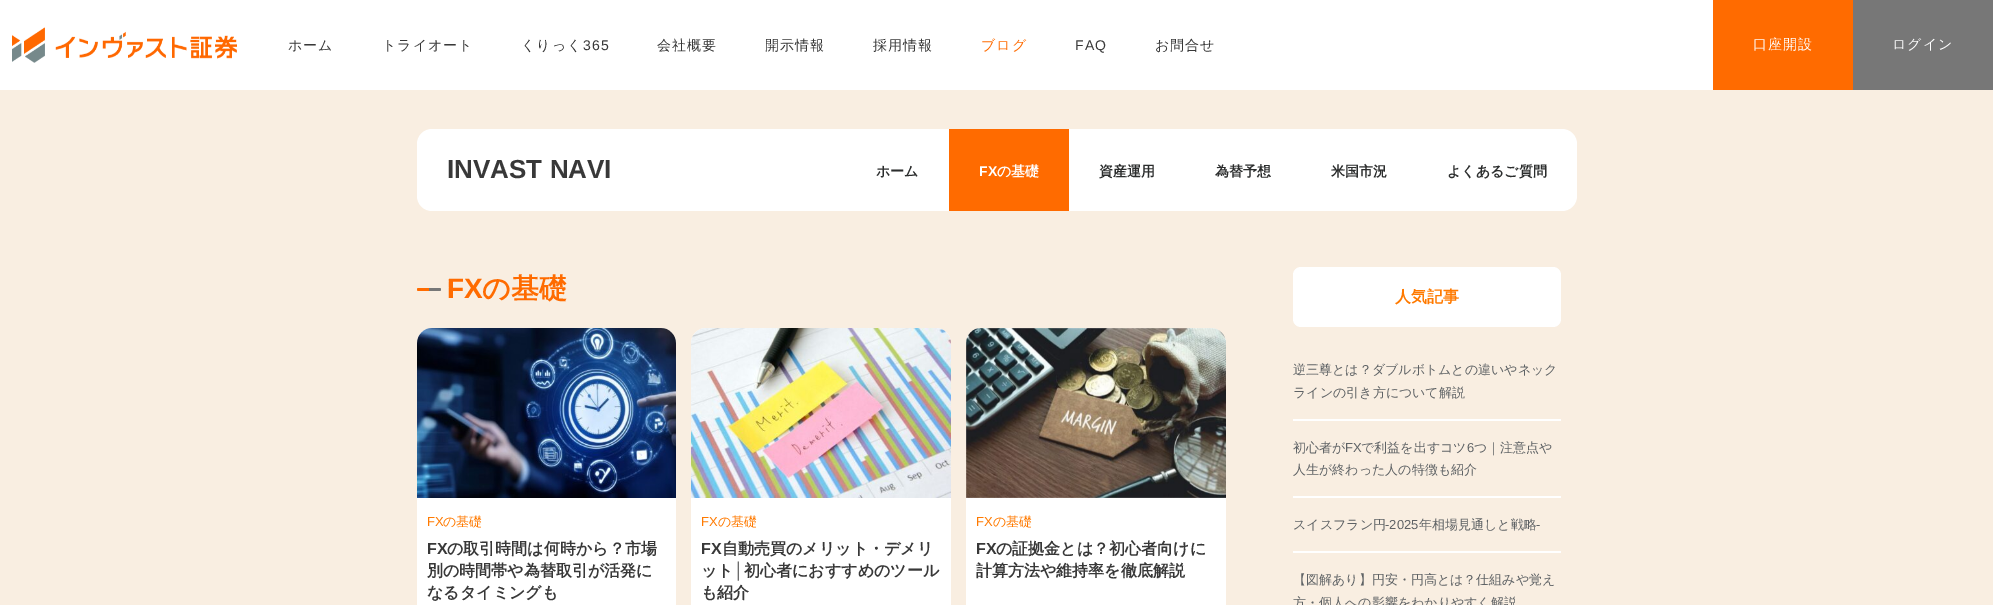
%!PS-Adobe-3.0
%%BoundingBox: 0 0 1993 605
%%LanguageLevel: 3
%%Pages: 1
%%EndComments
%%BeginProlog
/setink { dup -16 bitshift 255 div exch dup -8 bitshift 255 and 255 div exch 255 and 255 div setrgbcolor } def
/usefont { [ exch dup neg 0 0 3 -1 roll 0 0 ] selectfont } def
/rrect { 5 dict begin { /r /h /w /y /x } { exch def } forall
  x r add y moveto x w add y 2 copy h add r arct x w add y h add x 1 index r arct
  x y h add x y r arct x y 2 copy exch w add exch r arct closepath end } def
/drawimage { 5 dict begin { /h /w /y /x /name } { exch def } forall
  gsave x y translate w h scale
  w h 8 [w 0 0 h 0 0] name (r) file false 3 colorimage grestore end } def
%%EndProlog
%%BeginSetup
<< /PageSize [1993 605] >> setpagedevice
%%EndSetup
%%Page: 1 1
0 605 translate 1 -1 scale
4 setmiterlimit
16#F9EEE1 setink
0 0 1993 605 rectfill
16#FFFFFF setink
0 0 1713 90 rectfill
(img1.raw) 12 27 225 36 drawimage
/WenQuanYiZenHei-Medium 14 usefont
16#383838 setink
288 50 moveto 1 0 (ホーム) ashow
382 50 moveto 1 0 (トライオート) ashow
521 50 moveto 1 0 (くりっく) ashow
/LiberationSans-Regular 14 usefont
583 50 moveto 1 0 (365) ashow
/WenQuanYiZenHei-Medium 14 usefont
657 50 moveto 1 0 (会社概要) ashow
765 50 moveto 1 0 (開示情報) ashow
873 50 moveto 1 0 (採用情報) ashow
16#FF6B00 setink
981 50 moveto 1 0 (ブログ) ashow
/LiberationSans-Regular 14 usefont
16#383838 setink
1075 50 moveto 1 0 (FAQ) ashow
/WenQuanYiZenHei-Medium 14 usefont
1155 50 moveto 1 0 (お問合せ) ashow
16#FF6B00 setink
1713 0 140 90 rectfill
16#FFFFFF setink
1753 49 moveto 1 0 (口座開設) ashow
16#777777 setink
1853 0 140 90 rectfill
16#FFFFFF setink
1892 49 moveto 1 0 (ログイン) ashow
417 129 1160 82 15 rrect fill
/LiberationSans-Bold 26 usefont
16#383838 setink
447 178 moveto (INVAST NAVI) show
/WenQuanYiZenHei-Bold 14 usefont
16#2B2D2D setink
876 176 moveto (ホーム) show
16#FF6B00 setink
949 129 120 82 rectfill
/LiberationSans-Bold 14 usefont
16#FFFFFF setink
979 176 moveto (FX) show
/WenQuanYiZenHei-Bold 14 usefont
997 176 moveto (の基礎) show
16#2B2D2D setink
[
    [(資産運用) 1099 176]
    [(為替予想) 1215 176]
    [(米国市況) 1331 176]
    [(よくあるご質問) 1447 176]
] { aload pop moveto show } forall
16#FF6B00 setink
418.5 288 moveto 429 288 lineto 429 291 lineto 418.5 291 lineto 417.5 291 417 290.5 417 289.5 curveto 417 288.5 417.5 288 418.5 288 curveto closepath fill
16#777777 setink
429 288 moveto 439.5 288 lineto 440.5 288 441 288.5 441 289.5 curveto 441 290.5 440.5 291 439.5 291 curveto 429 291 lineto closepath fill
/LiberationSans-Bold 28 usefont
16#FF6B00 setink
447 298 moveto (FX) show
/WenQuanYiZenHei-Bold 28 usefont
482 298 moveto (の基礎) show
16#FFFFFF setink
417 328 259 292 15 rrect fill
(img2.raw) 417 328 259 170 drawimage
/LiberationSans-Regular 13 usefont
16#FF7A00 setink
427 526 moveto (FX) show
/WenQuanYiZenHei-Medium 13 usefont
443 526 moveto (の基礎) show
/LiberationSans-Bold 16 usefont
16#383838 setink
427 554 moveto (FX) show
/WenQuanYiZenHei-Bold 16 usefont
[
    [(の取引時間は何時から？市場) 447 554]
    [(別の時間帯や為替取引が活発に) 427 576]
    [(なるタイミングも) 427 598]
] { aload pop moveto show } forall
16#FFFFFF setink
691 328 260 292 15 rrect fill
(img3.raw) 691 328 260 170 drawimage
/LiberationSans-Regular 13 usefont
16#FF7A00 setink
701 526 moveto (FX) show
/WenQuanYiZenHei-Medium 13 usefont
718 526 moveto (の基礎) show
/LiberationSans-Bold 16 usefont
16#383838 setink
701 554 moveto (FX) show
/WenQuanYiZenHei-Bold 16 usefont
722 554 moveto (自動売買のメリット・デメリ) show
701 576 moveto (ット) show
/LiberationSans-Bold 16 usefont
734 576 moveto (│) show
/WenQuanYiZenHei-Bold 16 usefont
744 576 moveto (初心者におすすめのツール) show
701 598 moveto (も紹介) show
16#FFFFFF setink
966 328 260 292 15 rrect fill
(img4.raw) 966 328 260 170 drawimage
/LiberationSans-Regular 13 usefont
16#FF7A00 setink
976 526 moveto (FX) show
/WenQuanYiZenHei-Medium 13 usefont
993 526 moveto (の基礎) show
/LiberationSans-Bold 16 usefont
16#383838 setink
976 554 moveto (FX) show
/WenQuanYiZenHei-Bold 16 usefont
996 554 moveto (の証拠金とは？初心者向けに) show
976 576 moveto (計算方法や維持率を徹底解説) show
16#FFFFFF setink
1293 267 268 60 8 rrect fill
16#FF7A00 setink
1395 302 moveto (人気記事) show
16#FFFFFF setink
1293 419 268 2 rectfill
/WenQuanYiZenHei-Medium 13 usefont
16#5E6265 setink
1293 374 moveto (逆三尊とは？ダブルボトムとの違いやネック) show
1293 397 moveto (ラインの引き方について解説) show
16#FFFFFF setink
1293 496 268 2 rectfill
16#5E6265 setink
1293 452 moveto (初心者が) show
/LiberationSans-Regular 13 usefont
1345 452 moveto (FX) show
/WenQuanYiZenHei-Medium 13 usefont
1361 452 moveto (で利益を出すコツ) show
/LiberationSans-Regular 13 usefont
1467 452 moveto (6) show
/WenQuanYiZenHei-Medium 13 usefont
1474 452 moveto (つ｜注意点や) show
1293 474 moveto (人生が終わった人の特徴も紹介) show
16#FFFFFF setink
1293 551 268 2 rectfill
16#5E6265 setink
1293 529 moveto (スイスフラン円) show
/LiberationSans-Regular 13 usefont
1385 529 moveto (-2025) show
/WenQuanYiZenHei-Medium 13 usefont
1419 529 moveto (年相場見通しと戦略) show
/LiberationSans-Regular 13 usefont
1536 529 moveto (-) show
/WenQuanYiZenHei-Medium 13 usefont
1293 584 moveto (【図解あり】円安・円高とは？仕組みや覚え) show
1293 607 moveto (方・個人への影響をわかりやすく解説) show
showpage
%%EOF
